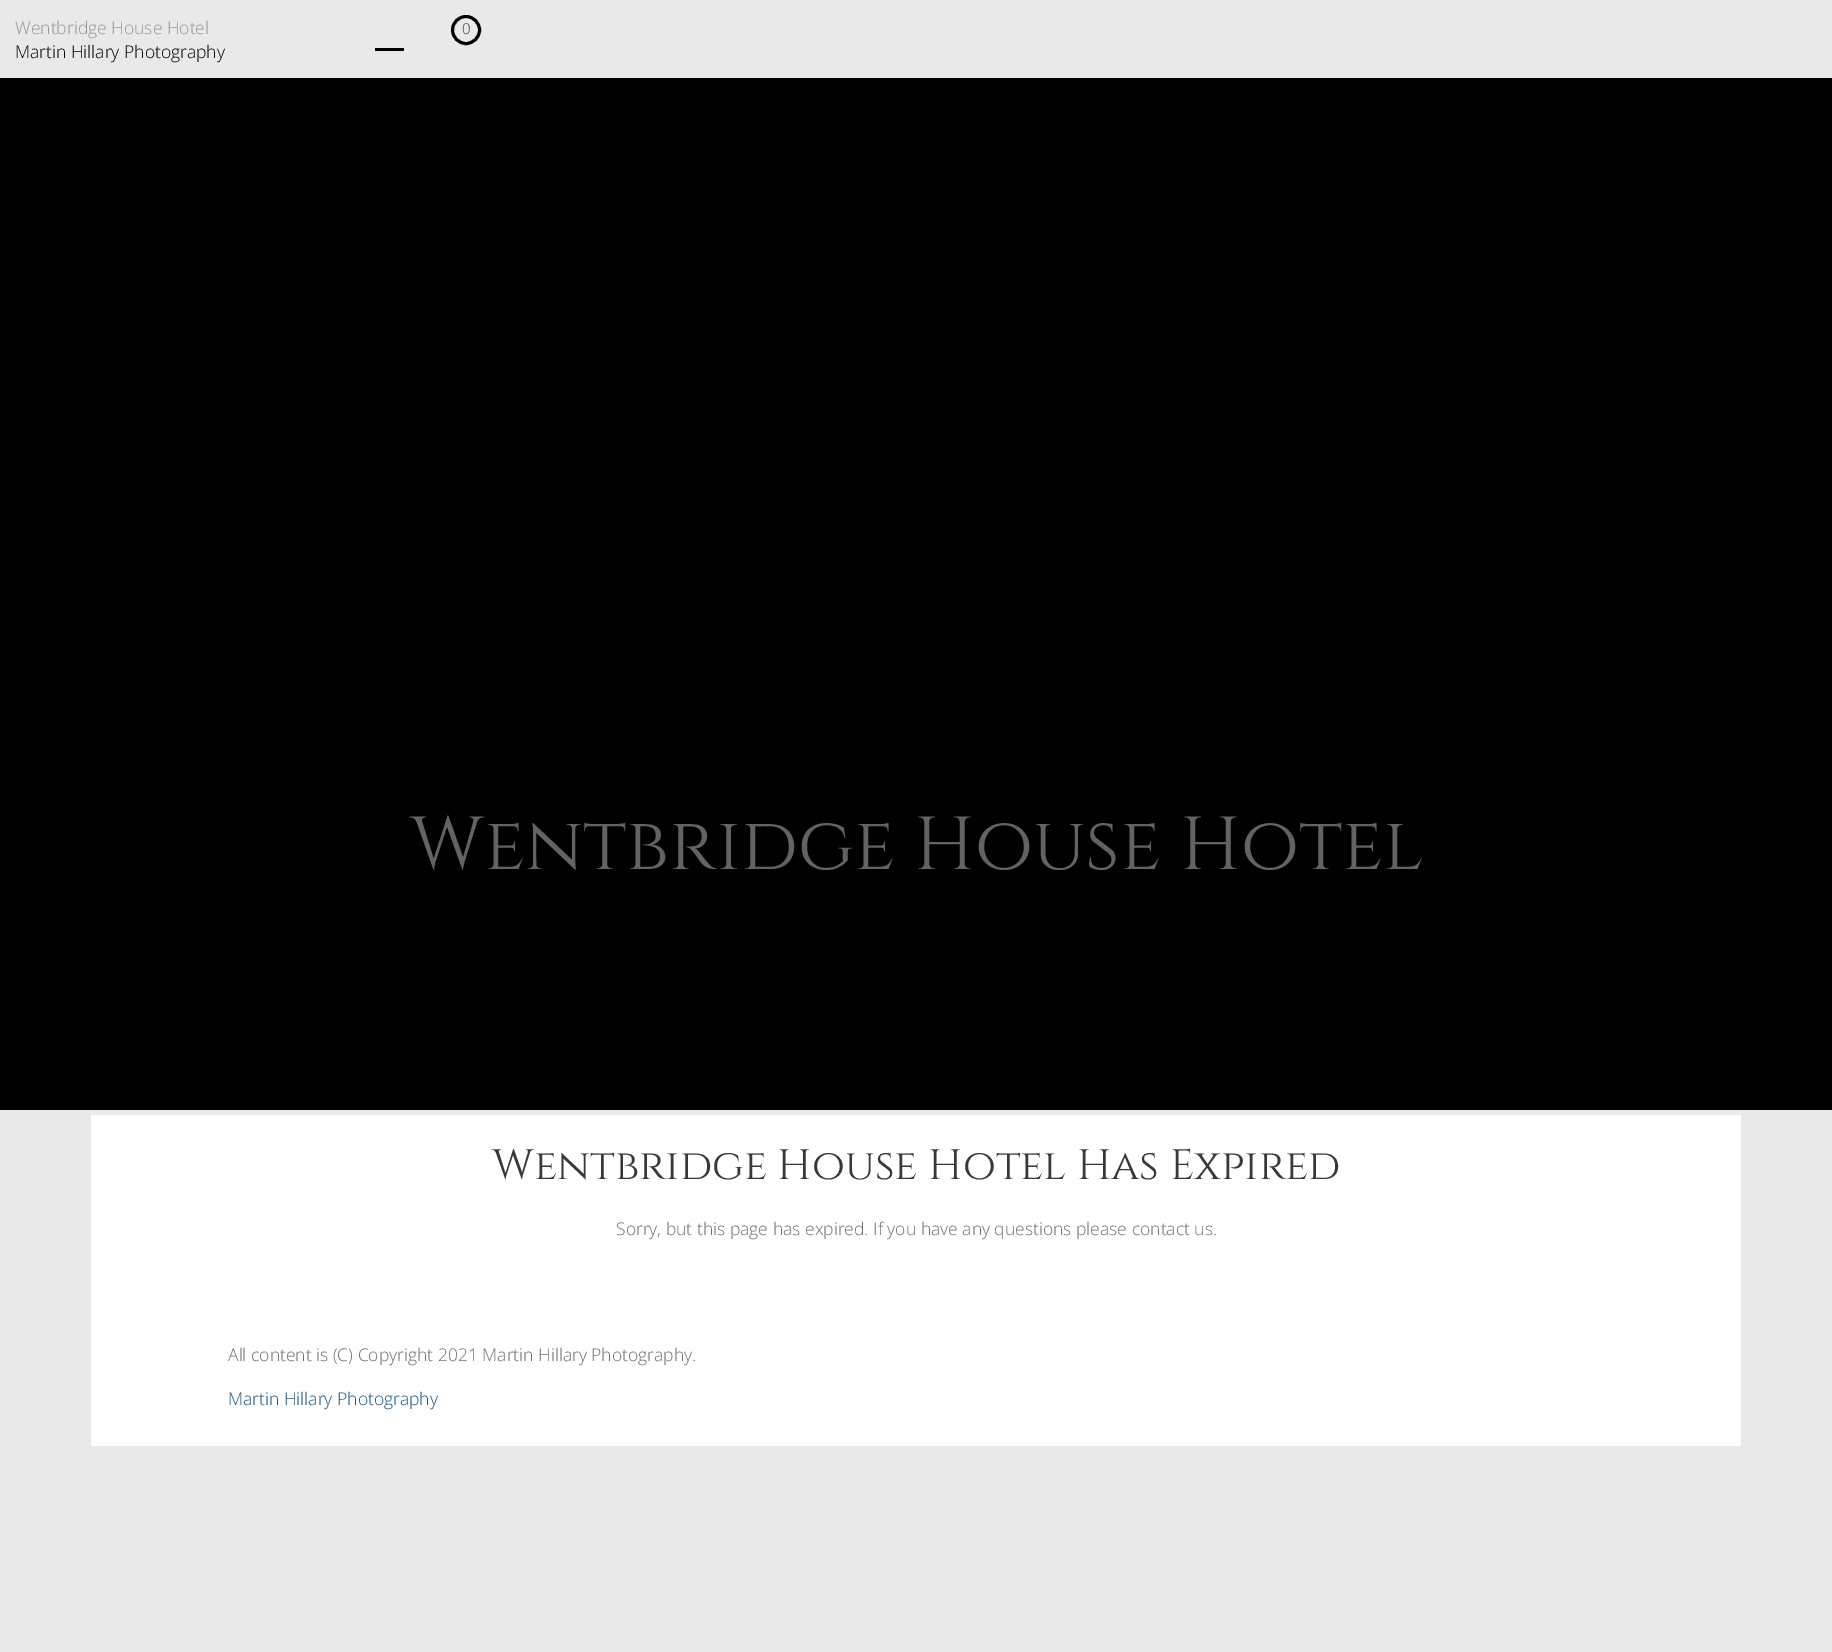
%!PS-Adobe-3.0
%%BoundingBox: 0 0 1832 1652
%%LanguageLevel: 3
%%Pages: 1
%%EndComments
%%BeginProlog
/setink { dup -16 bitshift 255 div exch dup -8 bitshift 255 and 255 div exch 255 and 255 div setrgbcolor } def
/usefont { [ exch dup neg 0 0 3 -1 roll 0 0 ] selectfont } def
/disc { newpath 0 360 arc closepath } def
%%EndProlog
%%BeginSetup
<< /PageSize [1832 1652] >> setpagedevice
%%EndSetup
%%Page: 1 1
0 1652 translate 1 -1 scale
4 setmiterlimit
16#E9E9E9 setink
0 0 1832 1652 rectfill
/OpenSans-Light 17.5 usefont
16#969696 setink
15 34 moveto (Wentbridge House Hotel) show
16#000000 setink
15 58 moveto (Martin Hillary Photography) show
3 setlinewidth
466 30 13.5 disc stroke
/OpenSans-Light 15 usefont
16#383838 setink
462 34 moveto (0) show
16#000000 setink
375 48 29 3 rectfill
0 78 1832 1032 rectfill
/Cinzel-Regular 75 usefont
16#636363 setink
410 869 moveto (Wentbridge House Hotel) show
16#FFFFFF setink
91 1115 1650 331 rectfill
/Cinzel-Regular 42.5 usefont
16#383838 setink
492 1179 moveto (Wentbridge House Hotel Has Expired) show
/OpenSans-Light 17.5 usefont
16#6E6E6E setink
616 1235 moveto (Sorry, but this page has expired. If you have any questions please contact us.) show
228 1361 moveto (All content is \(C\) Copyright 2021 Martin Hillary Photography.) show
16#1A5480 setink
228 1405 moveto (Martin Hillary Photography) show
showpage
%%EOF
